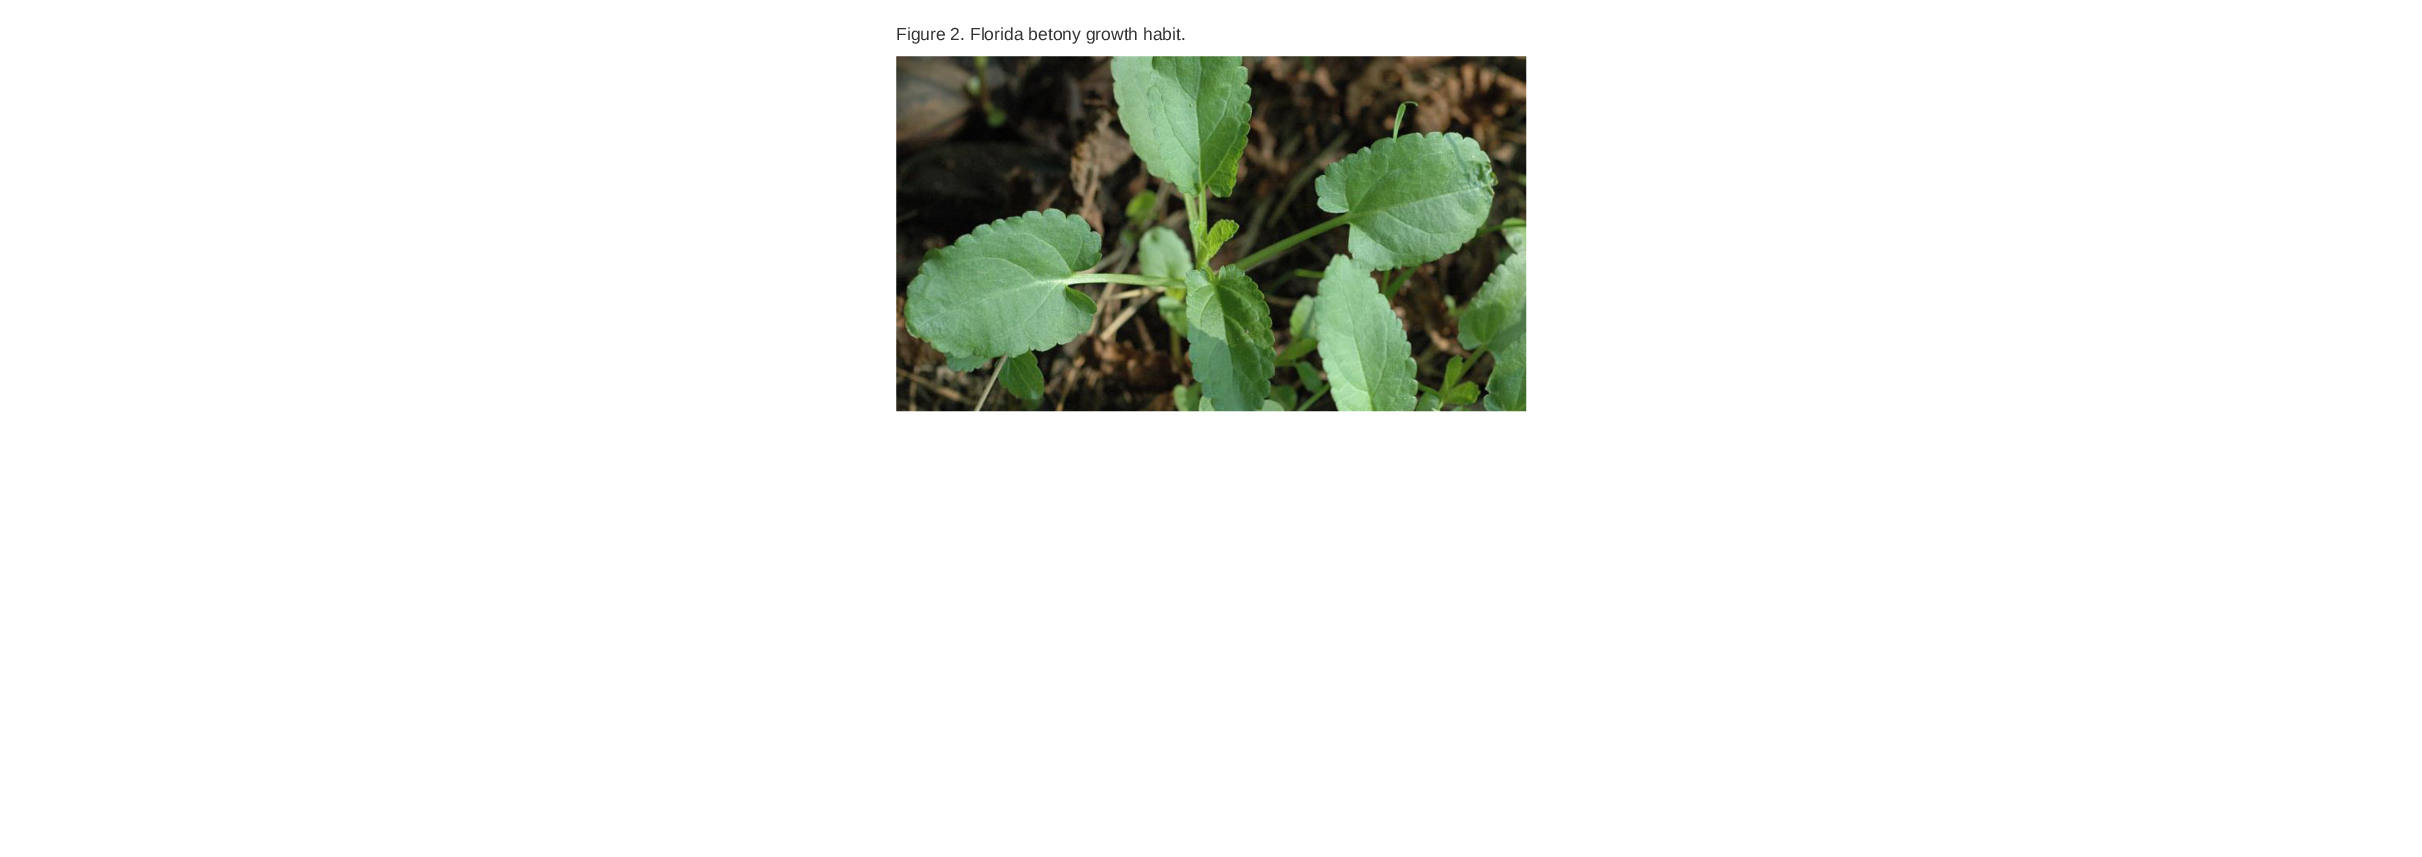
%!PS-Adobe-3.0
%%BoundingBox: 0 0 2422 857
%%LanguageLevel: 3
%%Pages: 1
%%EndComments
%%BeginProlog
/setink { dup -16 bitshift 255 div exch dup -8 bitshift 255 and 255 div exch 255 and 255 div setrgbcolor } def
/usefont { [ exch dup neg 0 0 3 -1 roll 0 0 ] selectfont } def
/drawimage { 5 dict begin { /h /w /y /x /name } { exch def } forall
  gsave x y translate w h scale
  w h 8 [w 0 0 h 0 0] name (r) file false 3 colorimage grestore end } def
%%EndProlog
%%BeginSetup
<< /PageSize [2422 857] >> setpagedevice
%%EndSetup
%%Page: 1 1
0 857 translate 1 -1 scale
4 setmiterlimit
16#FFFFFF setink
0 0 2422 857 rectfill
/LiberationSans-Regular 17.5 usefont
16#333333 setink
896 40 moveto (Figure 2. Florida betony growth habit.) show
(img1.raw) 896 56 631 356 drawimage
showpage
%%EOF
